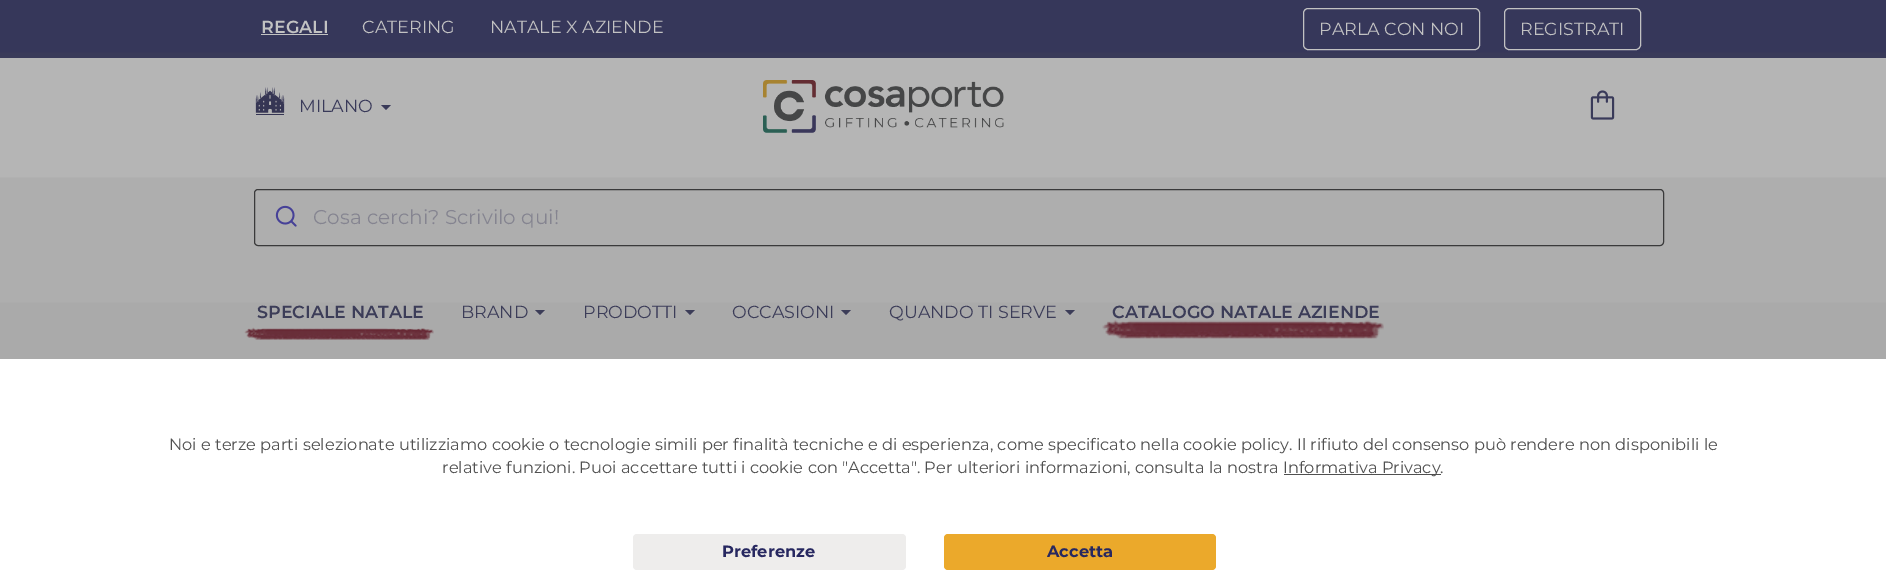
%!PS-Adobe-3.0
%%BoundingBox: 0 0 1886 588
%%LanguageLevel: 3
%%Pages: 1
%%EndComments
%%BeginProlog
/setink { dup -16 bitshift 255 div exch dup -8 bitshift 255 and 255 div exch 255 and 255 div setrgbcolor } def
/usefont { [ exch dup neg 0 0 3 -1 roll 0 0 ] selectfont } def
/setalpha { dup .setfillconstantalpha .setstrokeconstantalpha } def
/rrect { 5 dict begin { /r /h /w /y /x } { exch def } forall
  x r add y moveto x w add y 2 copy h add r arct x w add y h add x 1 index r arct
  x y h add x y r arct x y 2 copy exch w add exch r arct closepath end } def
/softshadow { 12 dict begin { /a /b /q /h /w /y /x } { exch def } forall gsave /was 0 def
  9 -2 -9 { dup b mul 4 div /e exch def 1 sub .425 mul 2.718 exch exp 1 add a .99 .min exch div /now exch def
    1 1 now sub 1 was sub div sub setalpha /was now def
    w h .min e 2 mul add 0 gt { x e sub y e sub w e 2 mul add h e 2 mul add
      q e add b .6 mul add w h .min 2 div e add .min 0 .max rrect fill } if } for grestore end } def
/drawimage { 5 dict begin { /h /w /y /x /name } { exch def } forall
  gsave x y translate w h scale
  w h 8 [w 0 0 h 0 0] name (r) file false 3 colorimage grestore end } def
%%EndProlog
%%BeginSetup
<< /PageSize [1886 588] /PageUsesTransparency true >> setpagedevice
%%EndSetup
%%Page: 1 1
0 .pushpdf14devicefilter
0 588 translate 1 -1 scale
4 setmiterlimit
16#FFFFFF setink
0 0 1886 588 rectfill
16#272860 setink
0 0 1886 58 rectfill
/Montserrat-SemiBold 17.5 usefont
16#FFFFFF setink
261 33 moveto (REGALI) show
261 34 67 1 rectfill
/Montserrat-Regular 17.5 usefont
362 33 moveto (CATERING) show
490 33 moveto (NATALE X AZIENDE) show
1303.5 8.5 176 41 4.5 rrect stroke
1319 35 moveto (PARLA CON NOI) show
1504.5 8.5 136 41 4.5 rrect stroke
1520 35 moveto (REGISTRATI) show
(img1.raw) 255 87 30 28 drawimage
16#272860 setink
299 112 moveto (MILANO) show
381 105 moveto 391 105 lineto 386 110 lineto closepath fill
(img2.raw) 763 80 241 53 drawimage
(img3.raw) 1590 90 25 30 drawimage
16#262627 setink
254.5 189.5 1409 56 3.5 rrect stroke
(img4.raw) 275 205 22 22 drawimage
/Montserrat-Regular 20 usefont
16#B3B2C8 setink
313 224 moveto (Cosa cerchi? Scrivilo qui!) show
/Montserrat-SemiBold 17.5 usefont
16#272860 setink
257 318 moveto (SPECIALE NATALE) show
(img5.raw) 244 327 190 13 drawimage
/Montserrat-Regular 17.5 usefont
461 318 moveto (BRAND) show
535 310 moveto 545 310 lineto 540 315 lineto closepath fill
583 318 moveto (PRODOTTI) show
685 310 moveto 695 310 lineto 690 315 lineto closepath fill
732 318 moveto (OCCASIONI) show
841 310 moveto 851 310 lineto 846 315 lineto closepath fill
889 318 moveto (QUANDO TI SERVE) show
1065 310 moveto 1075 310 lineto 1070 315 lineto closepath fill
/Montserrat-SemiBold 17.5 usefont
1112 318 moveto (CATALOGO NATALE AZIENDE) show
(img6.raw) 1102 319 282 20 drawimage
16#505050 setink
-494 -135 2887 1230 0 250 0.5 softshadow
16#FFFFFF setink
0 359 1886 229 rectfill
/Montserrat-Regular 16.25 usefont
16#505050 setink
169 450 moveto (Noi e terze parti selezionate utilizziamo cookie o tecnologie simili per finalità tecniche e di esperienza, come specificato nella cookie policy. Il rifiuto del consenso può rendere non disponibili le) show
442 473 moveto (relative funzioni. Puoi accettare tutti i cookie con "Accetta". Per ulteriori informazioni, consulta la nostra) show
1284 474 157 1 rectfill
1283 473 moveto (Informativa Privacy.) show
16#EEEDEC setink
633 534 273 36 4 rrect fill
/Montserrat-Bold 16.25 usefont
16#272860 setink
722 557 moveto (Preferenze) show
16#EBA92B setink
944 534 272 36 4 rrect fill
16#272860 setink
1047 557 moveto (Accetta) show
.poppdf14devicefilter showpage
%%EOF
